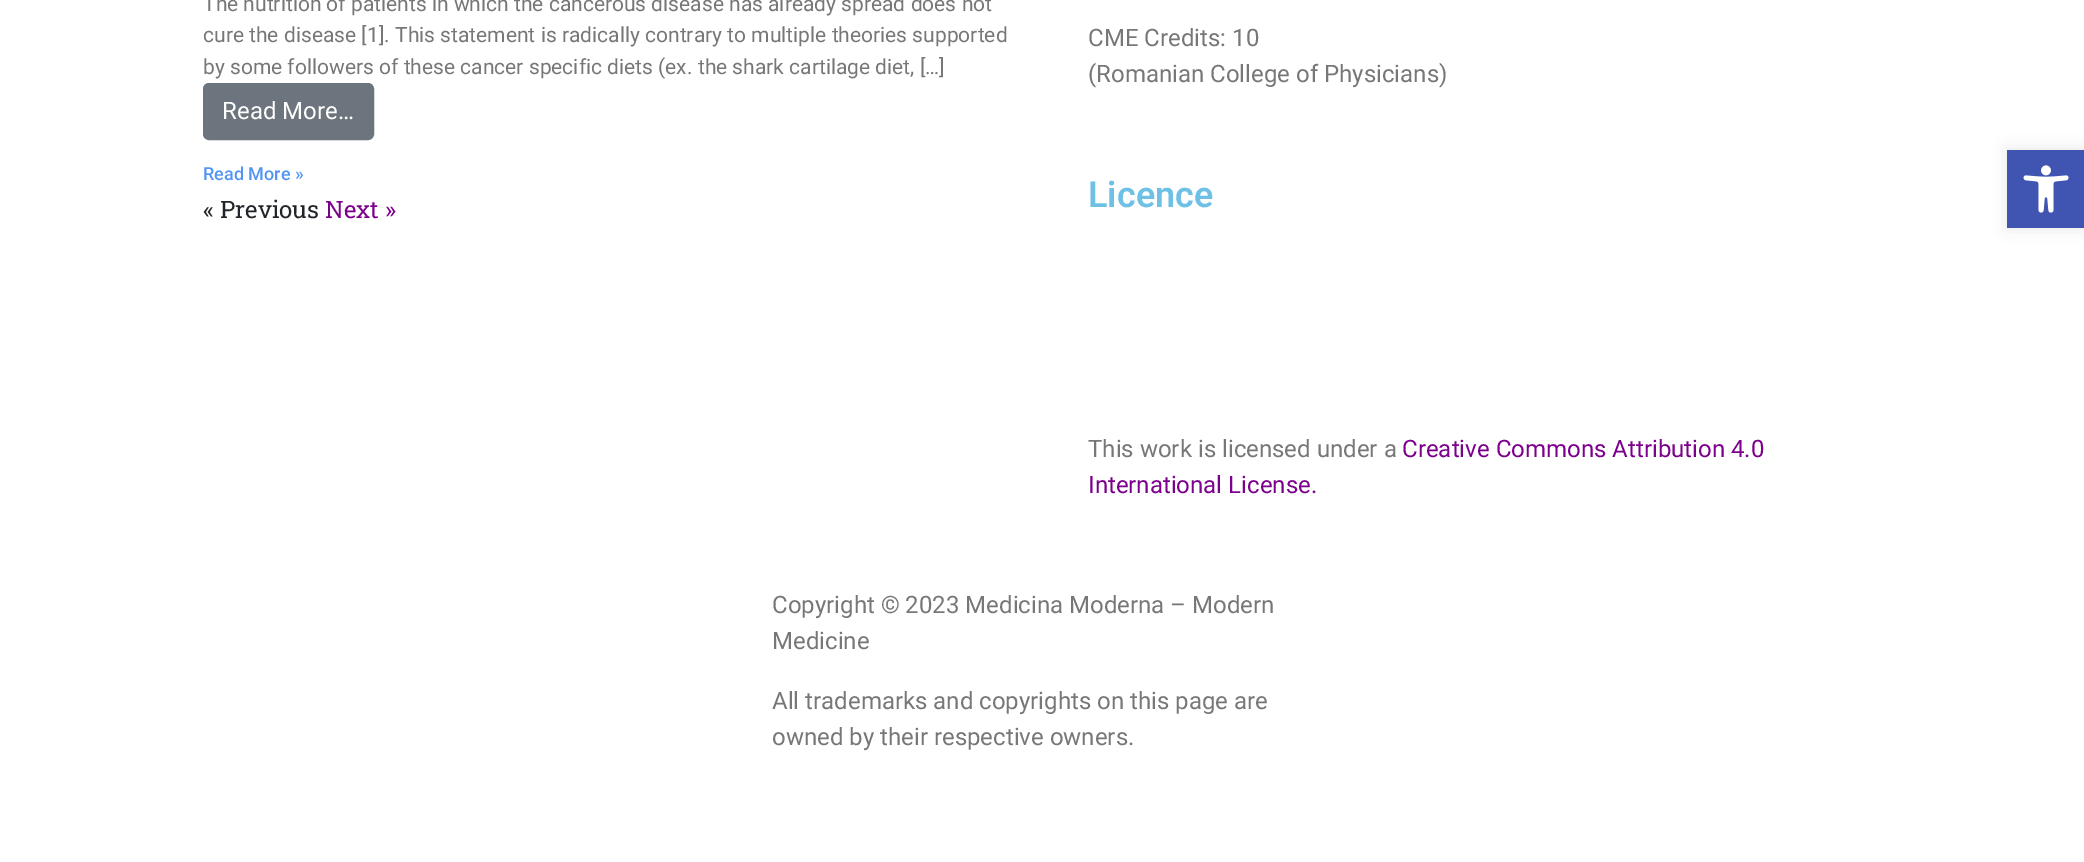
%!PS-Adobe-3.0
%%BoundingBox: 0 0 2084 862
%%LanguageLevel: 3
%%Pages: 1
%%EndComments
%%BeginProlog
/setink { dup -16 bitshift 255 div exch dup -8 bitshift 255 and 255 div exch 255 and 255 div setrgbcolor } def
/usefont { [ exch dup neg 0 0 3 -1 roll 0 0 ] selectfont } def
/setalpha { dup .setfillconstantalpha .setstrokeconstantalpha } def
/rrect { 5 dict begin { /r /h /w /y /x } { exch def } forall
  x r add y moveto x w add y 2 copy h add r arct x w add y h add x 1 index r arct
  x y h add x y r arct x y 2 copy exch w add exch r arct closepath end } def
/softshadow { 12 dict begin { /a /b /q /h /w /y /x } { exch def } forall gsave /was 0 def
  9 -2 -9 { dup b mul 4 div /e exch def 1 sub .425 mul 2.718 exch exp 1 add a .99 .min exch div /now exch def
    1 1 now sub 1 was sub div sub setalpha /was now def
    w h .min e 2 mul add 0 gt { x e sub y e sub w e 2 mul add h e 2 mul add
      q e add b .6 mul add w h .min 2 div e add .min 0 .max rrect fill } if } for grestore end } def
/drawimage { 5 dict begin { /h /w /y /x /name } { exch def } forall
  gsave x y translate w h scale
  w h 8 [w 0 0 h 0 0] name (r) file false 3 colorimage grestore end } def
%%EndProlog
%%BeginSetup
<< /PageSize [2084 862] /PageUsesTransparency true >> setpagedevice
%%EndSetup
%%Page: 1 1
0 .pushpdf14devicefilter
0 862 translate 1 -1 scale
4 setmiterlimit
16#FFFFFF setink
0 0 2084 862 rectfill
/Roboto-Regular 21 usefont
16#777777 setink
[
    [(The nutrition of patients in which the cancerous disease has already spread does not) 203 11]
    [(cure the disease [1]. This statement is radically contrary to multiple theories supported) 203 42]
    [(by some followers of these cancer specific diets \(ex. the shark cartilage diet, […]) 203 74]
] { aload pop moveto show } forall
16#6C757D setink
204 84 169 55 5 rrect gsave fill grestore
2 setlinewidth
stroke
/Roboto-Regular 24 usefont
16#FFFFFF setink
222 119 moveto (Read More…) show
/Roboto-Medium 18 usefont
16#5395F3 setink
203 180 moveto (Read More ») show
/RobotoSlab-Regular 24 usefont
16#212529 setink
203 218 moveto (« Previous) show
16#7C008C setink
325 218 moveto (Next ») show
/Roboto-Regular 24 usefont
16#777777 setink
1088 46 moveto (CME Credits: 10) show
1088 82 moveto (\(Romanian College of Physicians\)) show
/Roboto-SemiBold 36 usefont
16#6EC1E4 setink
1088 207 moveto (Licence) show
/Roboto-Regular 24 usefont
16#777777 setink
1088 457 moveto (This work is licensed under a) show
16#7C008C setink
1402 457 moveto (Creative Commons Attribution 4.0) show
1088 493 moveto (International License.) show
16#000000 setink
2007 150 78 78 0 7.5 0.1 softshadow
16#4054B2 setink
2007 150 77 78 rectfill
(img1.raw) 2023 165 46 48 drawimage
16#777777 setink
[
    [(Copyright © 2023 Medicina Moderna – Modern) 772 613]
    [(Medicine) 772 649]
    [(All trademarks and copyrights on this page are) 772 709]
    [(owned by their respective owners.) 772 745]
] { aload pop moveto show } forall
.poppdf14devicefilter showpage
%%EOF
